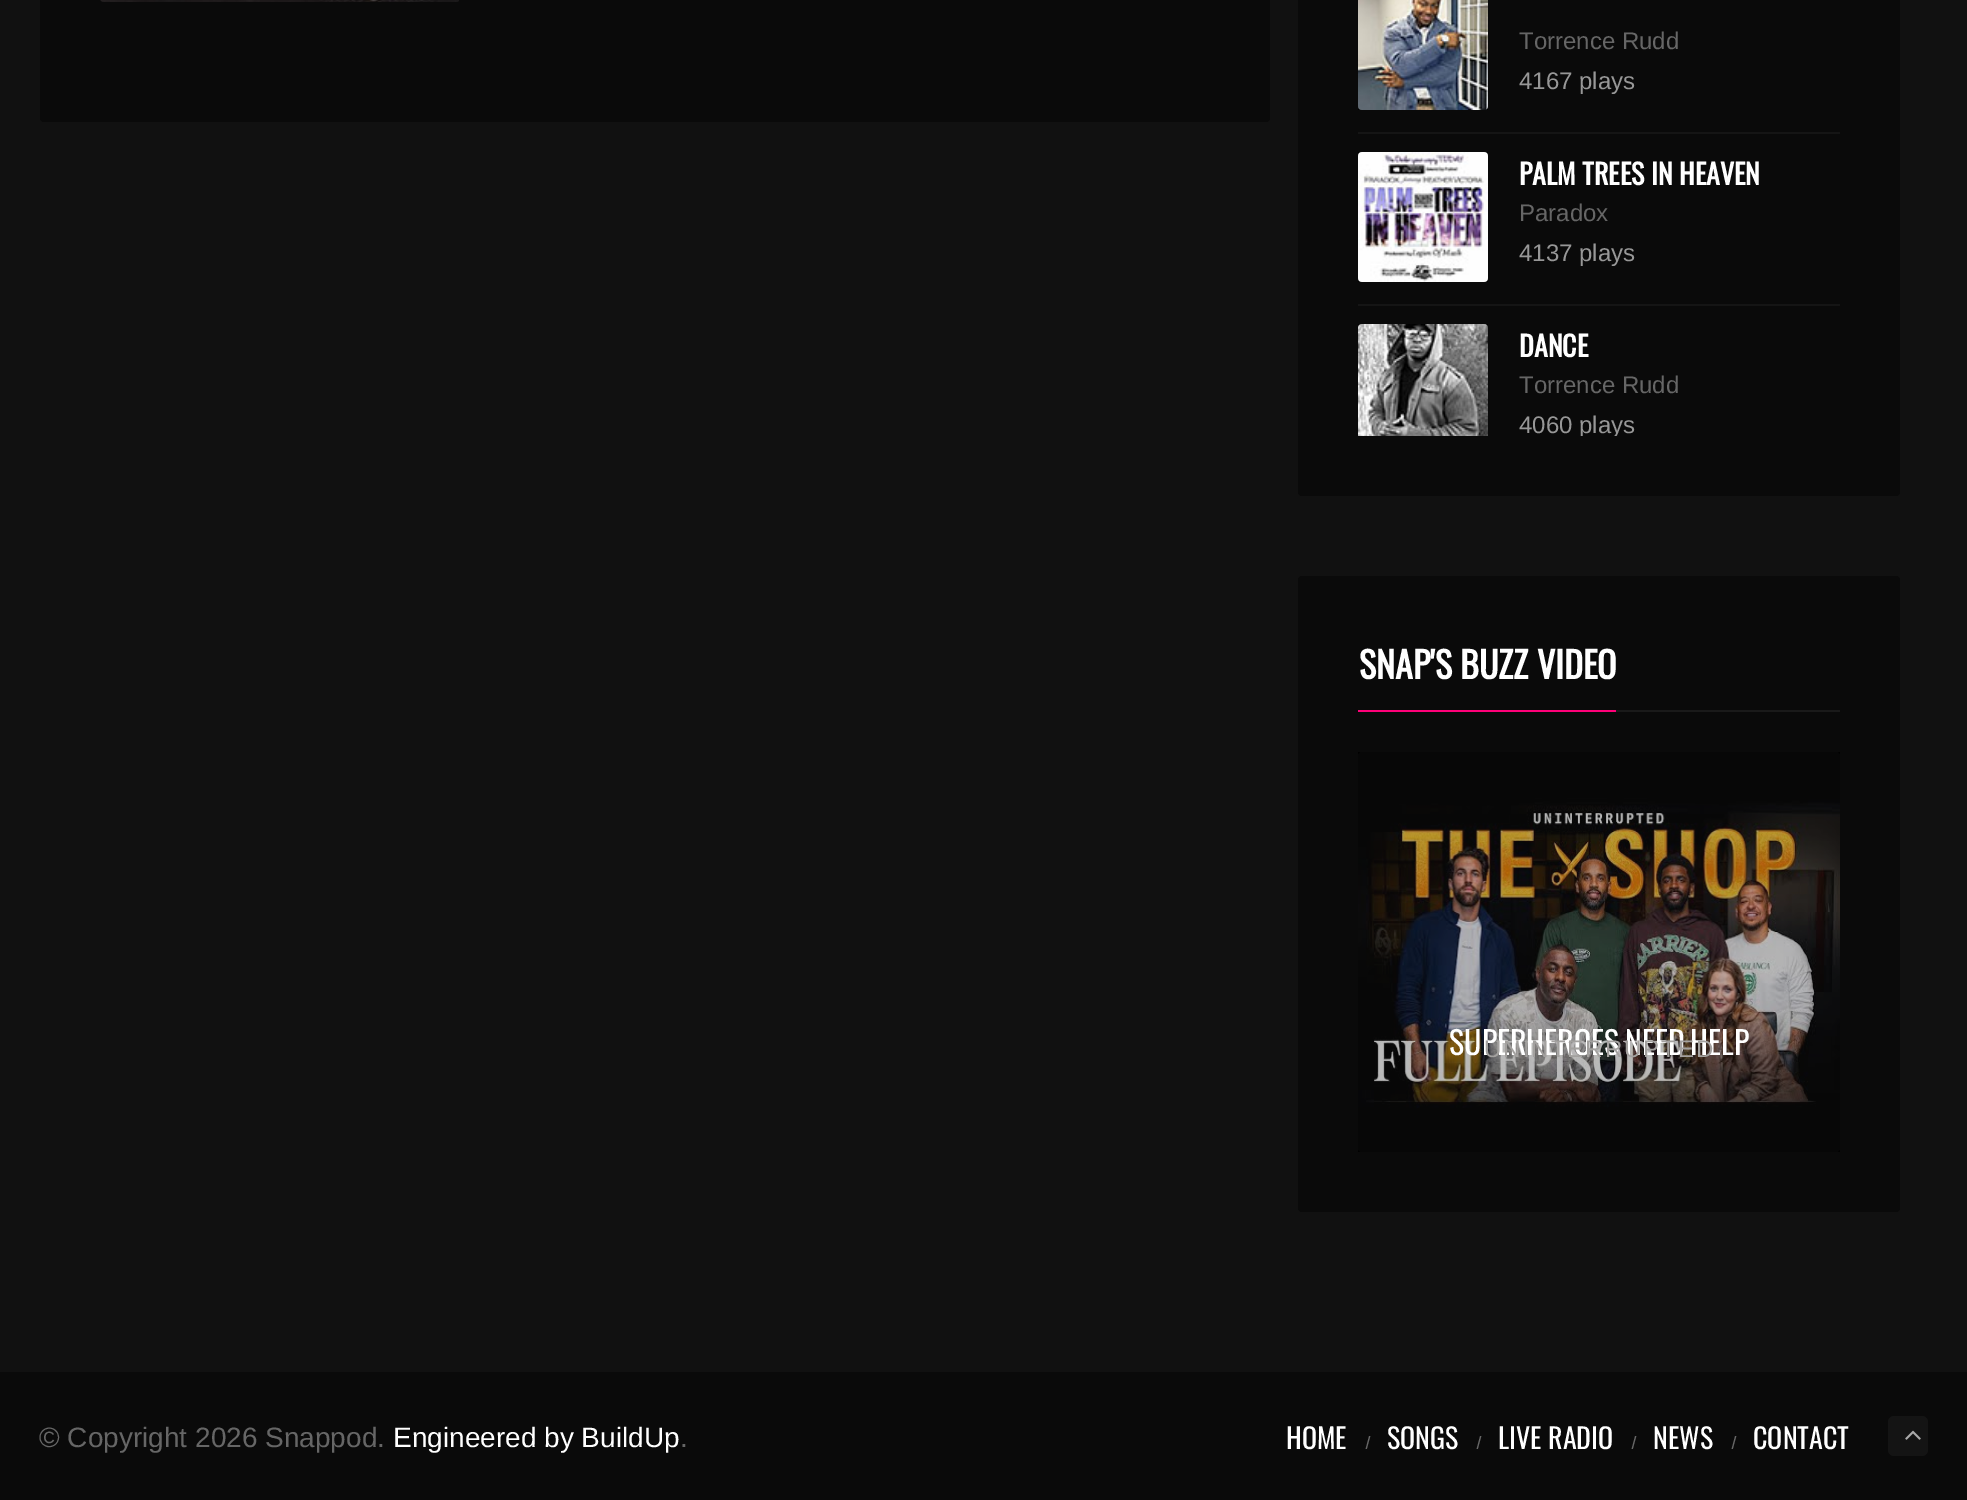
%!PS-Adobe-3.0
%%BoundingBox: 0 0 1967 1500
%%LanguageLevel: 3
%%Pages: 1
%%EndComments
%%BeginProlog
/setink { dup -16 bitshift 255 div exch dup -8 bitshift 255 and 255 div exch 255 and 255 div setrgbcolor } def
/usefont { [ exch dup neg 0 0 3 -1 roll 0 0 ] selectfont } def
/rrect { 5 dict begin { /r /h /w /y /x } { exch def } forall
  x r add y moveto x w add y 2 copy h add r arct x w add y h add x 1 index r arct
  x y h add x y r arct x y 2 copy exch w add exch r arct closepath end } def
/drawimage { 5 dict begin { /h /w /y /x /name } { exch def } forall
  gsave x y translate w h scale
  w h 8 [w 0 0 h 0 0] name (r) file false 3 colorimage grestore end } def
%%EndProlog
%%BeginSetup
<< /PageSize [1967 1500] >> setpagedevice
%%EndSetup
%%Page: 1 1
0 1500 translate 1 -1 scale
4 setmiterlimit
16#111111 setink
0 0 1967 1500 rectfill
16#0A0A0A setink
40 -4 1230 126 4 rrect fill
(img1.raw) 100 0 359 2 drawimage
1298 -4 602 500 4 rrect fill
16#151515 setink
1358 132 482 2 rectfill
16#000000 setink
1358 106 130 4 rectfill
(img2.raw) 1358 0 130 110 drawimage
/LiberationSans-Regular 24 usefont
16#666666 setink
1519 49 moveto (Torrence Rudd) show
16#979797 setink
1519 89 moveto (4167 plays) show
16#151515 setink
1358 304 482 2 rectfill
16#000000 setink
1358 152 130 130 rectfill
(img3.raw) 1358 152 130 130 drawimage
/Oswald-Bold 28 usefont
16#FFFFFF setink
1519 185 moveto (PALM TREES IN HEAVEN) show
/LiberationSans-Regular 24 usefont
16#666666 setink
1519 221 moveto (Paradox) show
16#979797 setink
1519 261 moveto (4137 plays) show
16#000000 setink
1358 324 130 4 rectfill
(img4.raw) 1358 324 130 112 drawimage
/Oswald-Bold 28 usefont
16#FFFFFF setink
1519 357 moveto (DANCE) show
/LiberationSans-Regular 24 usefont
16#666666 setink
1519 393 moveto (Torrence Rudd) show
gsave
1358 0 482 436 rectclip
16#979797 setink
1519 433 moveto (4060 plays) show
grestore
16#0A0A0A setink
1298 576 602 636 4 rrect fill
16#FF0078 setink
1358 710 258 2 rectfill
/Oswald-Bold 36 usefont
16#FFFFFF setink
1359 679 moveto (SNAP'S BUZZ VIDEO) show
16#1A1A1A setink
1616 710 224 2 rectfill
16#000000 setink
1358 752 482 400 rectfill
16#171717 setink
1358 752 482 400 4 rrect fill
(img5.raw) 1358 752 482 400 drawimage
/Oswald-Regular 32 usefont
16#FFFFFF setink
1449 1055 moveto -2 0 32 (SUPERHEROES NEED HELP) widthshow
/LiberationSans-Regular 24 usefont
16#A3A19F setink
1484 1057 moveto 2 0 (UNINTERRUPTED) ashow
16#0A0A0A setink
0 1372 1967 128 rectfill
/LiberationSans-Regular 28 usefont
16#666666 setink
39 1447 moveto (© Copyright 2026 Snappod.) show
16#FFFFFF setink
393 1447 moveto (Engineered by BuildUp) show
16#666666 setink
680 1447 moveto (.) show
/Oswald-Regular 28 usefont
16#FFFFFF setink
1286 1449 moveto (HOME) show
/Oswald-Regular 16 usefont
16#666666 setink
1365 1449 moveto (/) show
/Oswald-Regular 28 usefont
16#FFFFFF setink
1387 1449 moveto (SONGS) show
/Oswald-Regular 16 usefont
16#666666 setink
1476 1449 moveto (/) show
/Oswald-Regular 28 usefont
16#FFFFFF setink
1498 1449 moveto (LIVE RADIO) show
/Oswald-Regular 16 usefont
16#666666 setink
1631 1449 moveto (/) show
/Oswald-Regular 28 usefont
16#FFFFFF setink
1653 1449 moveto (NEWS) show
/Oswald-Regular 16 usefont
16#666666 setink
1731 1449 moveto (/) show
/Oswald-Regular 28 usefont
16#FFFFFF setink
1753 1449 moveto (CONTACT) show
16#141414 setink
1888 1416 40 40 6 rrect fill
(img6.raw) 1905 1430 16 10 drawimage
showpage
%%EOF
